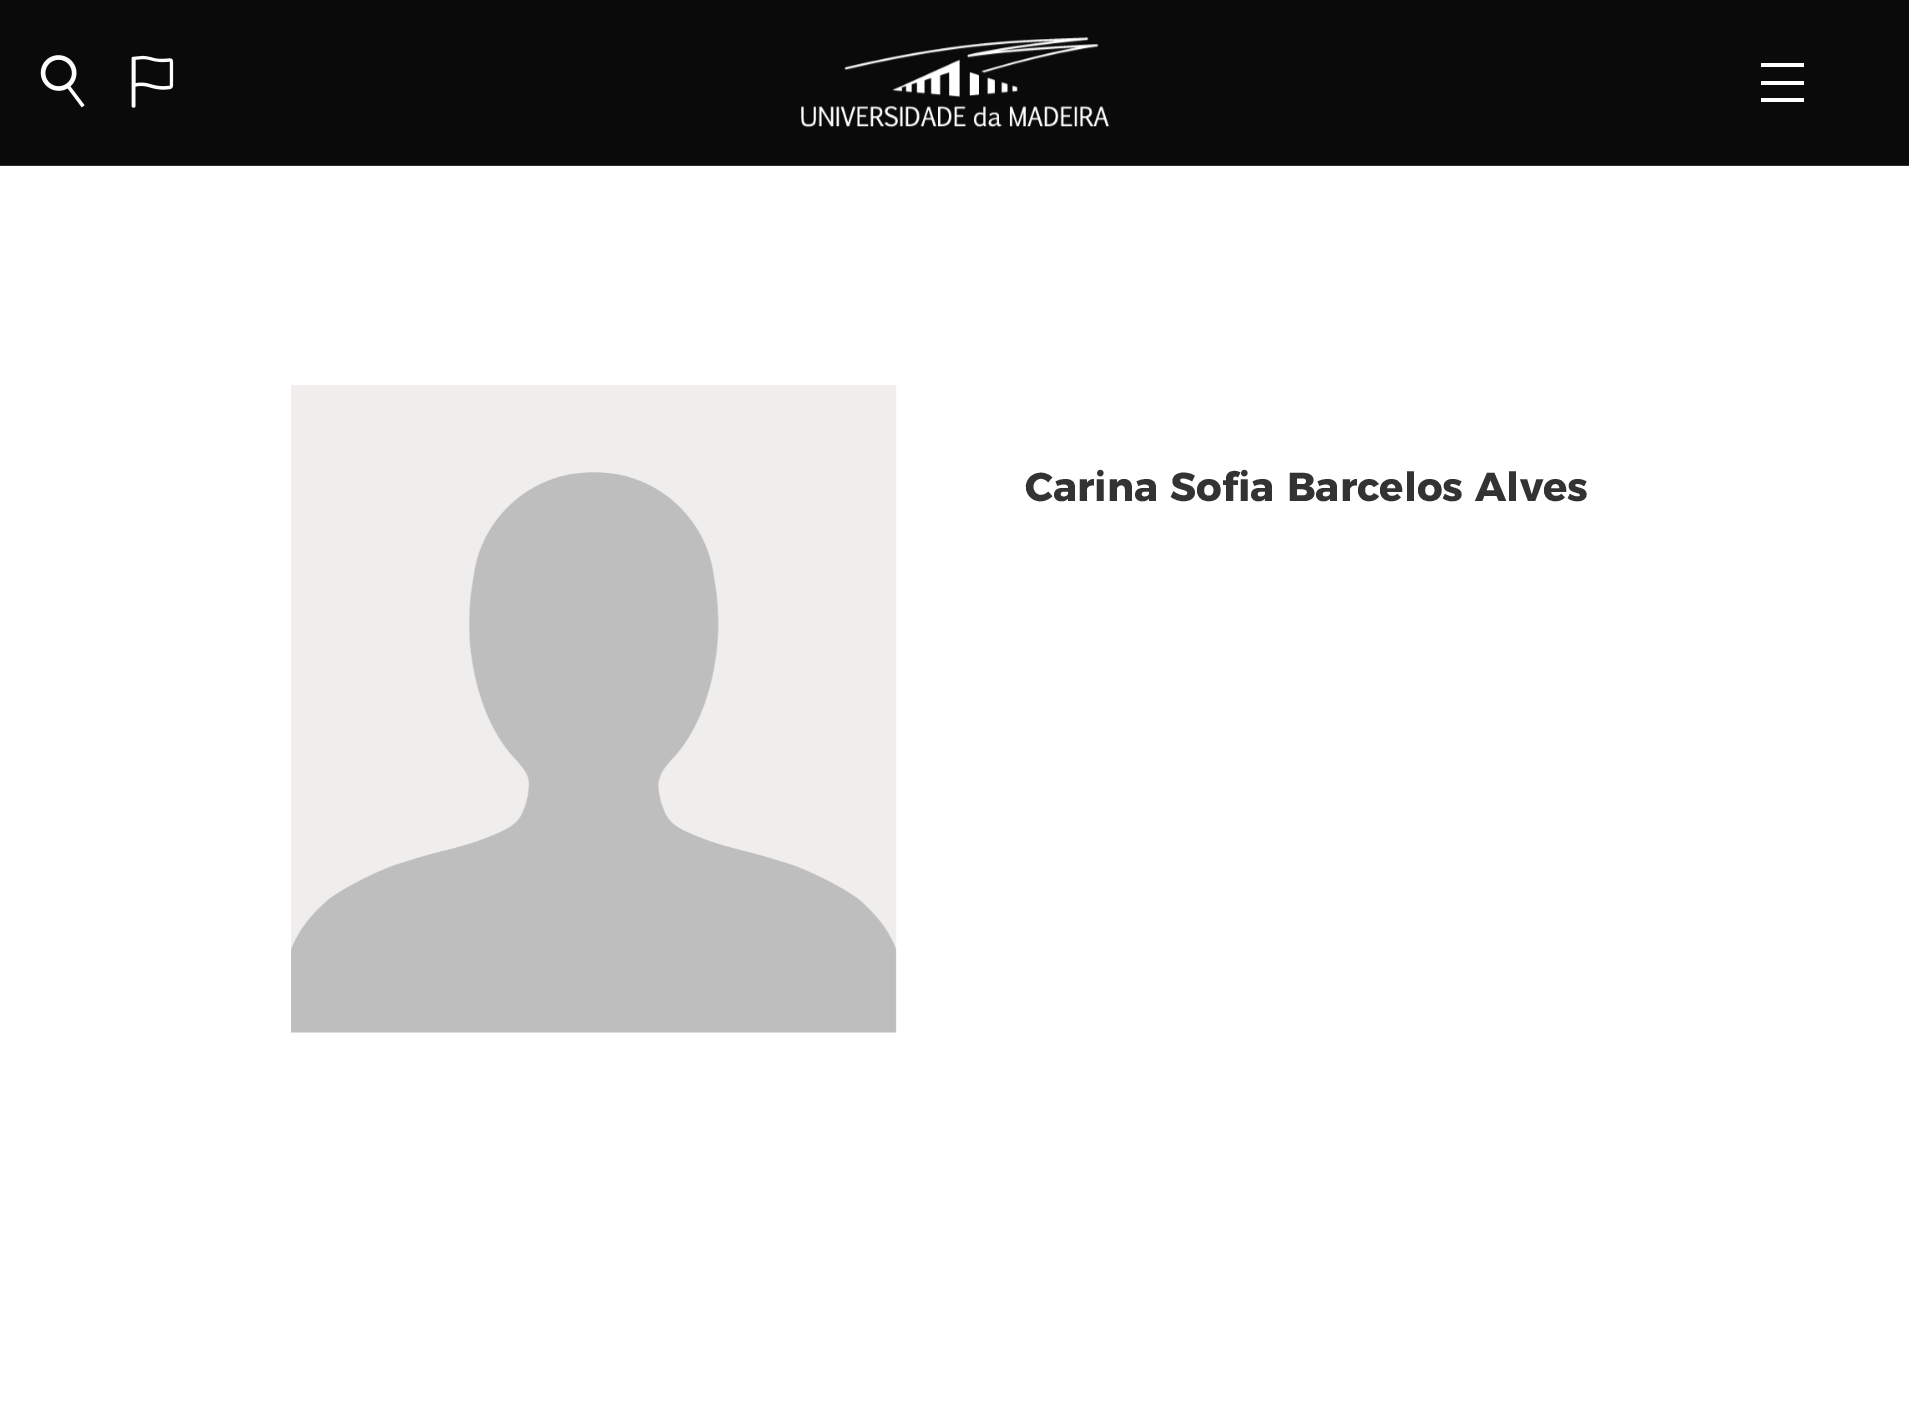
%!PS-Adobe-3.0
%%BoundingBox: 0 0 1909 1418
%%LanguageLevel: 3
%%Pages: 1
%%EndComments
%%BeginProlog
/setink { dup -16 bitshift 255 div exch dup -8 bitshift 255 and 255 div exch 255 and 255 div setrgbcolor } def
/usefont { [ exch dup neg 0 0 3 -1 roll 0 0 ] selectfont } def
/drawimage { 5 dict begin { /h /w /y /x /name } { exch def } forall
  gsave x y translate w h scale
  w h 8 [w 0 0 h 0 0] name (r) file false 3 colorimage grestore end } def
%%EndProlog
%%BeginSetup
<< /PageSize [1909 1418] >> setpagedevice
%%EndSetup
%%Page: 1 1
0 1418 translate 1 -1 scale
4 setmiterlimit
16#FFFFFF setink
0 0 1909 1418 rectfill
16#0A0A0A setink
0 0 1909 165 rectfill
16#2F2F2F setink
0 165 1909 1 rectfill
(img1.raw) 40 55 45 53 drawimage
(img2.raw) 131 55 43 53 drawimage
(img3.raw) 801 37 309 91 drawimage
[
    [1761 63 43 4 16#FFFFFF]
    [1761 81 43 4 16#FFFFFF]
    [1761 98 43 4 16#FFFFFF]
] { aload pop setink rectfill } forall
(img4.raw) 291 385 606 648 drawimage
/Montserrat-Bold 40.25 usefont
16#333333 setink
1025 501 moveto (Carina Sofia Barcelos Alves) show
showpage
%%EOF
